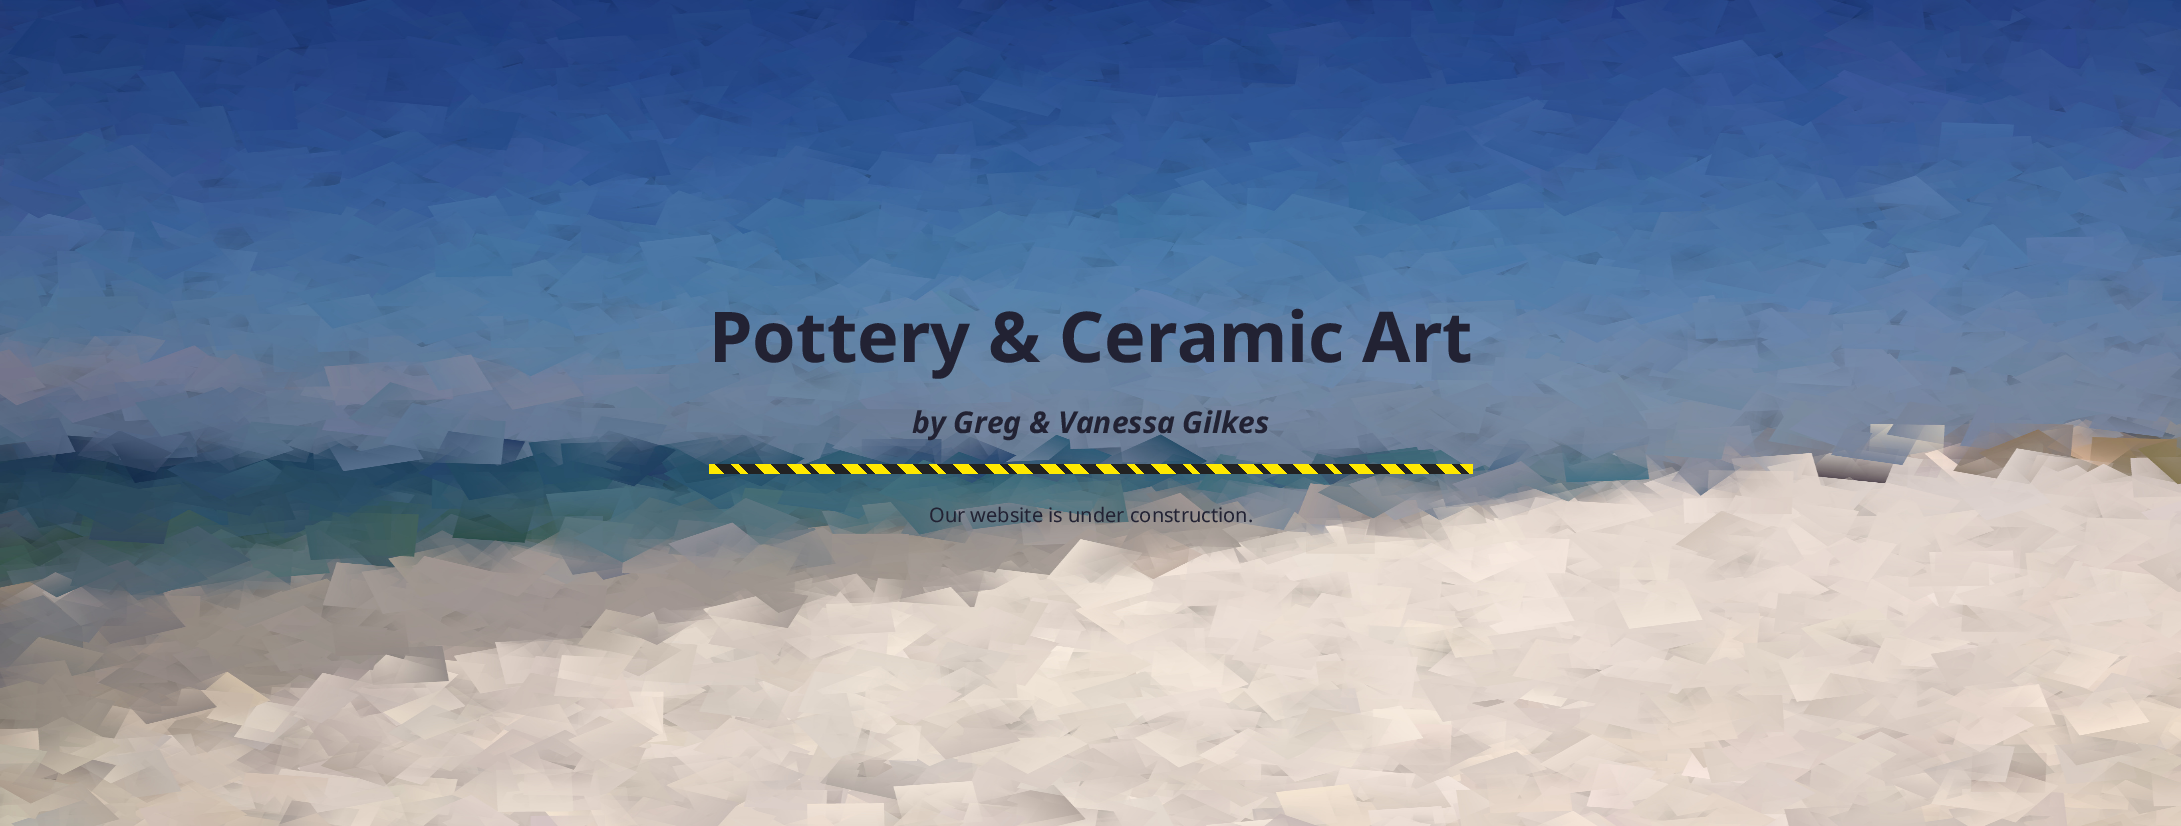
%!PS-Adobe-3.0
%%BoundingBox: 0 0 2181 826
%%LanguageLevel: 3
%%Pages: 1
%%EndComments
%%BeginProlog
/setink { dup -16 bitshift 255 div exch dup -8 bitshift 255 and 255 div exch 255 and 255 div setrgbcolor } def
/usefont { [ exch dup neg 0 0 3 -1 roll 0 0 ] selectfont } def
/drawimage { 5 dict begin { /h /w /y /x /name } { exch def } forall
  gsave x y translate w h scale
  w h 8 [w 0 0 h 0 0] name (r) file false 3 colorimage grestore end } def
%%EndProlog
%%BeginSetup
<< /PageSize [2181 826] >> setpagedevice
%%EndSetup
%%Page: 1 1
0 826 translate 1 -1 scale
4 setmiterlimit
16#FFFFFF setink
0 0 2181 826 rectfill
(img1.raw) 0 0 2181 826 drawimage
/NotoSans-Bold 70 usefont
16#222233 setink
709 362 moveto (Pottery & Ceramic Art) show
/NotoSans-BoldItalic 30 usefont
912 433 moveto (by Greg & Vanessa Gilkes) show
gsave 709 464 moveto 1473 464 lineto 1473 474 lineto 709 474 lineto closepath clip newpath
<< /ShadingType 2 /ColorSpace /DeviceRGB /Coords [897 662 1293 266] /Extend [true true] /Function << /FunctionType 3 /Domain [0 1] /Functions [<< /FunctionType 2 /Domain [0 1] /C0 [1 0.91 0] /C1 [1 0.918 0] /N 1 >> << /FunctionType 2 /Domain [0 1] /C0 [0.133 0.133 0.133] /C1 [0.133 0.133 0.133] /N 1 >> << /FunctionType 2 /Domain [0 1] /C0 [1 0.91 0] /C1 [1 0.918 0] /N 1 >> << /FunctionType 2 /Domain [0 1] /C0 [0.133 0.133 0.133] /C1 [0.133 0.133 0.133] /N 1 >> << /FunctionType 2 /Domain [0 1] /C0 [1 0.91 0] /C1 [1 0.918 0] /N 1 >> << /FunctionType 2 /Domain [0 1] /C0 [0.133 0.133 0.133] /C1 [0.133 0.133 0.133] /N 1 >> << /FunctionType 2 /Domain [0 1] /C0 [1 0.91 0] /C1 [1 0.918 0] /N 1 >> << /FunctionType 2 /Domain [0 1] /C0 [0.133 0.133 0.133] /C1 [0.133 0.133 0.133] /N 1 >> << /FunctionType 2 /Domain [0 1] /C0 [1 0.91 0] /C1 [1 0.918 0] /N 1 >> << /FunctionType 2 /Domain [0 1] /C0 [0.133 0.133 0.133] /C1 [0.133 0.133 0.133] /N 1 >> << /FunctionType 2 /Domain [0 1] /C0 [1 0.91 0] /C1 [1 0.918 0] /N 1 >> << /FunctionType 2 /Domain [0 1] /C0 [0.133 0.133 0.133] /C1 [0.133 0.133 0.133] /N 1 >> << /FunctionType 2 /Domain [0 1] /C0 [1 0.91 0] /C1 [1 0.918 0] /N 1 >> << /FunctionType 2 /Domain [0 1] /C0 [0.133 0.133 0.133] /C1 [0.133 0.133 0.133] /N 1 >> << /FunctionType 2 /Domain [0 1] /C0 [1 0.91 0] /C1 [1 0.918 0] /N 1 >> << /FunctionType 2 /Domain [0 1] /C0 [0.133 0.133 0.133] /C1 [0.133 0.133 0.133] /N 1 >> << /FunctionType 2 /Domain [0 1] /C0 [1 0.91 0] /C1 [1 0.918 0] /N 1 >> << /FunctionType 2 /Domain [0 1] /C0 [0.133 0.133 0.133] /C1 [0.133 0.133 0.133] /N 1 >> << /FunctionType 2 /Domain [0 1] /C0 [1 0.91 0] /C1 [1 0.918 0] /N 1 >> << /FunctionType 2 /Domain [0 1] /C0 [0.133 0.133 0.133] /C1 [0.133 0.133 0.133] /N 1 >> << /FunctionType 2 /Domain [0 1] /C0 [1 0.91 0] /C1 [1 0.918 0] /N 1 >> << /FunctionType 2 /Domain [0 1] /C0 [0.133 0.133 0.133] /C1 [0.133 0.133 0.133] /N 1 >> << /FunctionType 2 /Domain [0 1] /C0 [1 0.91 0] /C1 [1 0.918 0] /N 1 >> << /FunctionType 2 /Domain [0 1] /C0 [0.133 0.133 0.133] /C1 [0.133 0.133 0.133] /N 1 >> << /FunctionType 2 /Domain [0 1] /C0 [1 0.91 0] /C1 [1 0.918 0] /N 1 >> << /FunctionType 2 /Domain [0 1] /C0 [0.133 0.133 0.133] /C1 [0.133 0.133 0.133] /N 1 >> << /FunctionType 2 /Domain [0 1] /C0 [1 0.91 0] /C1 [1 0.918 0] /N 1 >> << /FunctionType 2 /Domain [0 1] /C0 [0.133 0.133 0.133] /C1 [0.133 0.133 0.133] /N 1 >> << /FunctionType 2 /Domain [0 1] /C0 [1 0.91 0] /C1 [1 0.918 0] /N 1 >> << /FunctionType 2 /Domain [0 1] /C0 [0.133 0.133 0.133] /C1 [0.133 0.133 0.133] /N 1 >> << /FunctionType 2 /Domain [0 1] /C0 [1 0.91 0] /C1 [1 0.918 0] /N 1 >> << /FunctionType 2 /Domain [0 1] /C0 [0.133 0.133 0.133] /C1 [0.133 0.133 0.133] /N 1 >> << /FunctionType 2 /Domain [0 1] /C0 [1 0.91 0] /C1 [1 0.918 0] /N 1 >> << /FunctionType 2 /Domain [0 1] /C0 [0.133 0.133 0.133] /C1 [0.133 0.133 0.133] /N 1 >> << /FunctionType 2 /Domain [0 1] /C0 [1 0.91 0] /C1 [1 0.918 0] /N 1 >> << /FunctionType 2 /Domain [0 1] /C0 [0.133 0.133 0.133] /C1 [0.133 0.133 0.133] /N 1 >> << /FunctionType 2 /Domain [0 1] /C0 [1 0.91 0] /C1 [1 0.918 0] /N 1 >> << /FunctionType 2 /Domain [0 1] /C0 [0.133 0.133 0.133] /C1 [0.133 0.133 0.133] /N 1 >> << /FunctionType 2 /Domain [0 1] /C0 [1 0.91 0] /C1 [1 0.918 0] /N 1 >> << /FunctionType 2 /Domain [0 1] /C0 [0.133 0.133 0.133] /C1 [0.133 0.133 0.133] /N 1 >> << /FunctionType 2 /Domain [0 1] /C0 [1 0.91 0] /C1 [1 0.918 0] /N 1 >> << /FunctionType 2 /Domain [0 1] /C0 [0.133 0.133 0.133] /C1 [0.133 0.133 0.133] /N 1 >> << /FunctionType 2 /Domain [0 1] /C0 [1 0.91 0] /C1 [1 0.918 0] /N 1 >> << /FunctionType 2 /Domain [0 1] /C0 [0.133 0.133 0.133] /C1 [0.133 0.133 0.133] /N 1 >> << /FunctionType 2 /Domain [0 1] /C0 [1 0.91 0] /C1 [1 0.918 0] /N 1 >> << /FunctionType 2 /Domain [0 1] /C0 [0.133 0.133 0.133] /C1 [0.133 0.133 0.133] /N 1 >> << /FunctionType 2 /Domain [0 1] /C0 [1 0.91 0] /C1 [1 0.918 0] /N 1 >> << /FunctionType 2 /Domain [0 1] /C0 [0.133 0.133 0.133] /C1 [0.133 0.133 0.133] /N 1 >> << /FunctionType 2 /Domain [0 1] /C0 [1 0.91 0] /C1 [1 0.918 0] /N 1 >> << /FunctionType 2 /Domain [0 1] /C0 [0.133 0.133 0.133] /C1 [0.133 0.133 0.133] /N 1 >> << /FunctionType 2 /Domain [0 1] /C0 [1 0.91 0] /C1 [1 0.918 0] /N 1 >> << /FunctionType 2 /Domain [0 1] /C0 [0.133 0.133 0.133] /C1 [0.133 0.133 0.133] /N 1 >> << /FunctionType 2 /Domain [0 1] /C0 [1 0.91 0] /C1 [1 0.918 0] /N 1 >> << /FunctionType 2 /Domain [0 1] /C0 [0.133 0.133 0.133] /C1 [0.133 0.133 0.133] /N 1 >> << /FunctionType 2 /Domain [0 1] /C0 [1 0.91 0] /C1 [1 0.918 0] /N 1 >> << /FunctionType 2 /Domain [0 1] /C0 [0.133 0.133 0.133] /C1 [0.133 0.133 0.133] /N 1 >>] /Bounds [0.02 0.04 0.05 0.07 0.09 0.11 0.13 0.14 0.16 0.18 0.2 0.21 0.23 0.25 0.27 0.29 0.3 0.32 0.34 0.36 0.38 0.39 0.41 0.43 0.45 0.46 0.48 0.5 0.52 0.54 0.55 0.57 0.59 0.61 0.62 0.64 0.66 0.68 0.7 0.71 0.73 0.75 0.77 0.79 0.8 0.82 0.84 0.86 0.88 0.89 0.91 0.93 0.95 0.96 0.98] /Encode [0 1 0 1 0 1 0 1 0 1 0 1 0 1 0 1 0 1 0 1 0 1 0 1 0 1 0 1 0 1 0 1 0 1 0 1 0 1 0 1 0 1 0 1 0 1 0 1 0 1 0 1 0 1 0 1 0 1 0 1 0 1 0 1 0 1 0 1 0 1 0 1 0 1 0 1 0 1 0 1 0 1 0 1 0 1 0 1 0 1 0 1 0 1 0 1 0 1 0 1 0 1 0 1 0 1 0 1 0 1 0 1] >> >> shfill grestore
/NotoSans-Regular 20 usefont
929 522 moveto (Our website is under construction.) show
showpage
%%EOF
